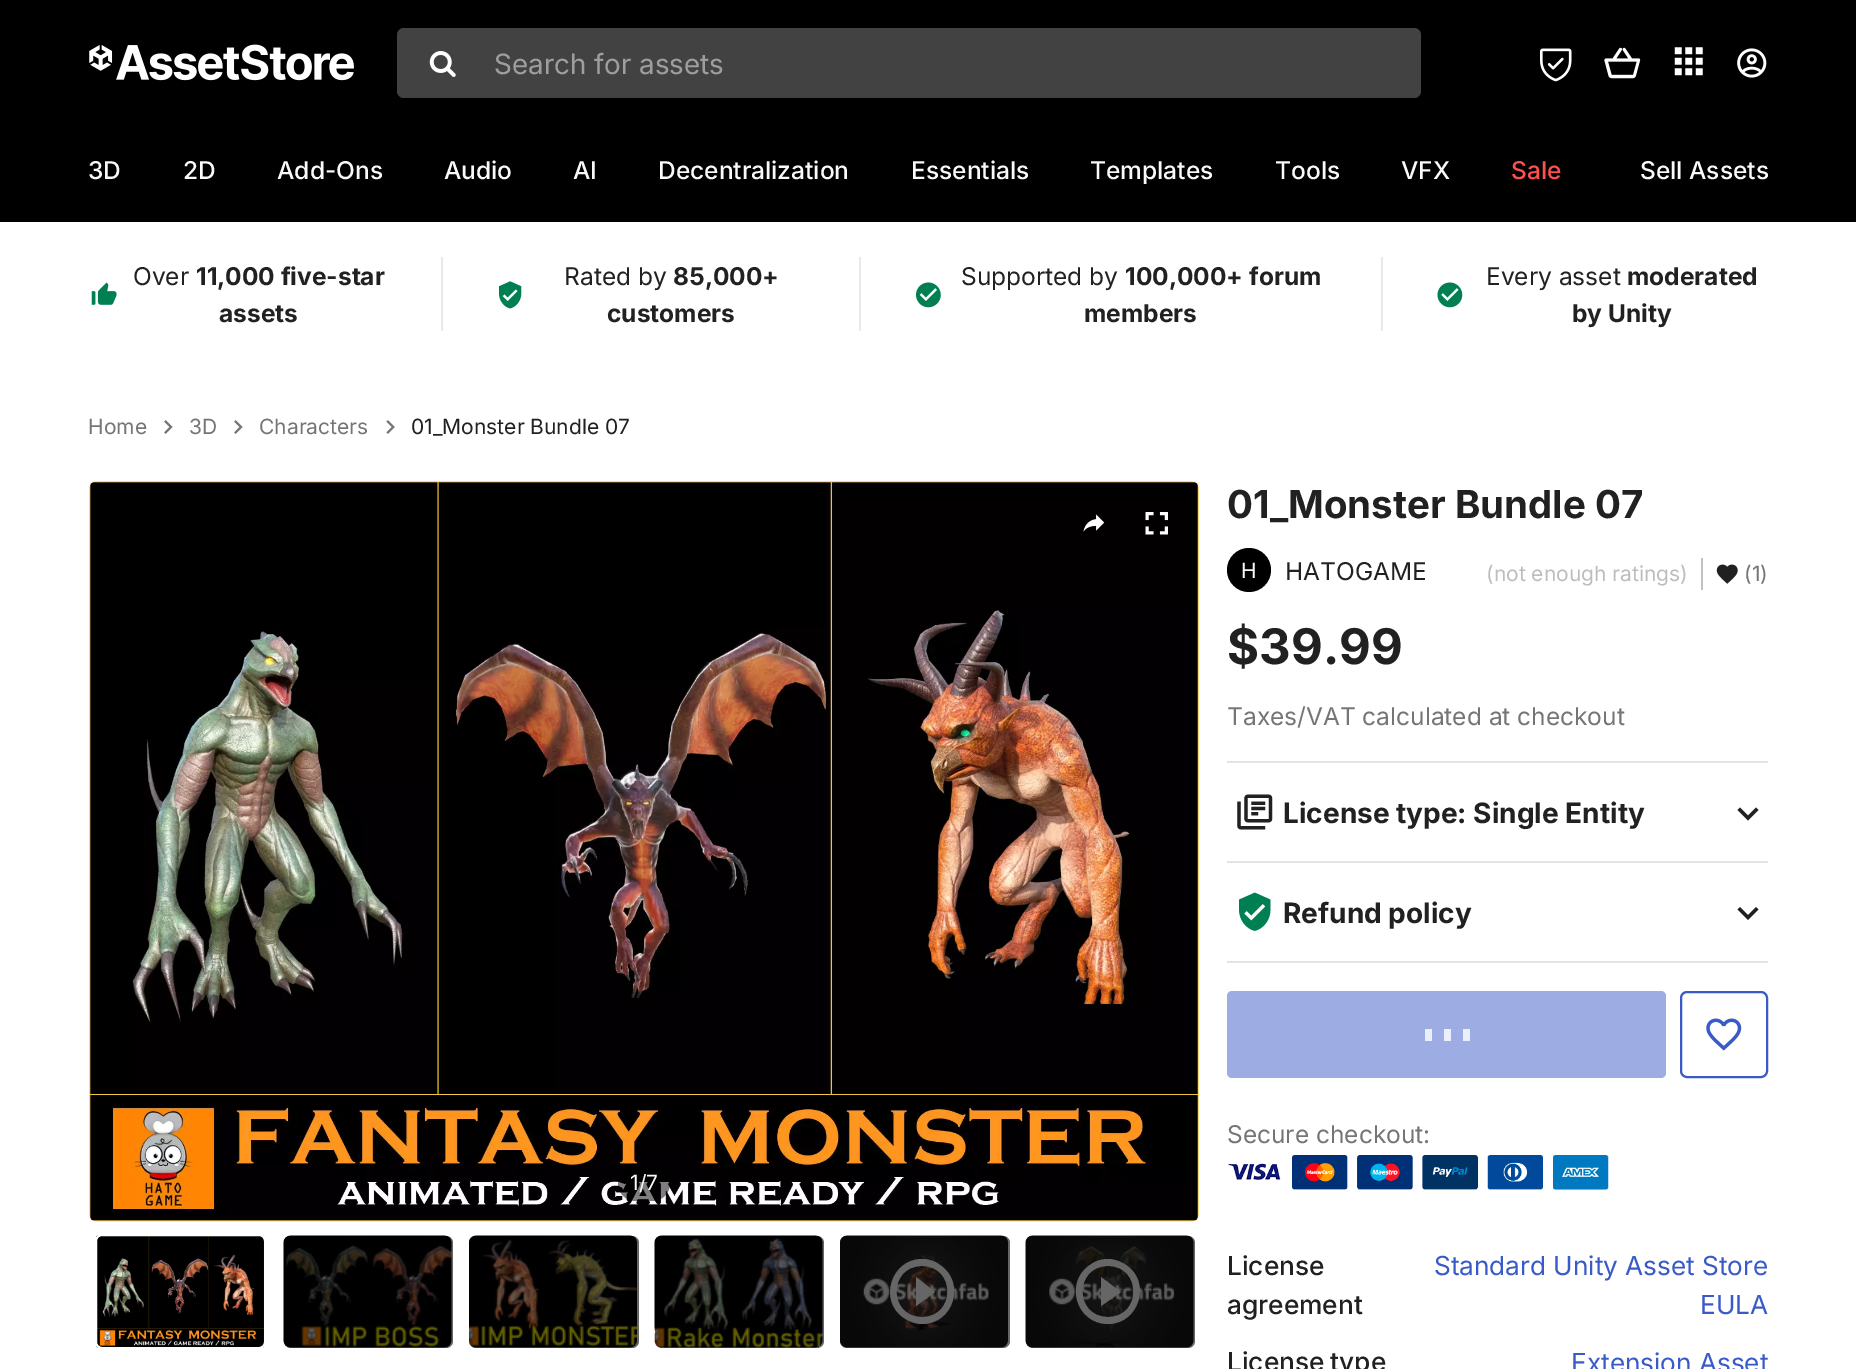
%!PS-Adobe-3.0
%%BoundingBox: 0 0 1856 1369
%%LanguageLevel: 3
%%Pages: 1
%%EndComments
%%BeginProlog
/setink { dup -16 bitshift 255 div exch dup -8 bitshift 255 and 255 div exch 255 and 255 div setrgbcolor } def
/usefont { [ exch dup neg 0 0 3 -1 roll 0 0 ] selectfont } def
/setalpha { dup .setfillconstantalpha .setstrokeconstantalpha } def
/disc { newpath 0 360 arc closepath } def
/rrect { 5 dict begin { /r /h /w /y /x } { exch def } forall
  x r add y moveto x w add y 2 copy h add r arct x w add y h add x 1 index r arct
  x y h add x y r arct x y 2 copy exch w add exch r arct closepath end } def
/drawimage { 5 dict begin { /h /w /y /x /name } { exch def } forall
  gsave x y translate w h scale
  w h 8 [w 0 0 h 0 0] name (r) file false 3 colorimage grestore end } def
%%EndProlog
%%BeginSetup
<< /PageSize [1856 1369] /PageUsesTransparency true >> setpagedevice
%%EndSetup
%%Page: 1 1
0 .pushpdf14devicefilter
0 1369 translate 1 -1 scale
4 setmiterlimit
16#FFFFFF setink
0 0 1856 1369 rectfill
16#000000 setink
0 0 1856 222 rectfill
(img1.raw) 89 44 265 37 drawimage
16#424242 setink
397 28 1024 70 7 rrect fill
(img2.raw) 429 51 27 26 drawimage
/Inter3-Regular 28 usefont
16#9E9E9E setink
494 74 moveto (Search for assets) show
(img3.raw) 1540 48 32 34 drawimage
(img4.raw) 1604 47 37 32 drawimage
(img5.raw) 1674 47 29 29 drawimage
(img6.raw) 1737 48 30 30 drawimage
/Inter-Medium 24.5 usefont
16#FAFAFA setink
[
    [(3D) 88 179]
    [(2D) 183 179]
    [(Add-Ons) 277 179]
    [(Audio) 444 179]
    [(AI) 573 179]
    [(Decentralization) 658 179]
    [(Essentials) 911 179]
    [(Templates) 1090 179]
    [(Tools) 1275 179]
    [(VFX) 1401 179]
] { aload pop moveto show } forall
16#FF5050 setink
1511 179 moveto (Sale) show
16#FAFAFA setink
1640 179 moveto (Sell Assets) show
(img7.raw) 91 282 26 23 drawimage
/Inter-Regular 24.5 usefont
16#212121 setink
133 285 moveto (Over) show
/Inter-Bold 24.5 usefont
196 285 moveto (11,000 five-star) show
219 322 moveto (assets) show
16#E9E9E9 setink
859 257 2 74 rectfill
441 257 2 74 rectfill
(img8.raw) 498 281 24 28 drawimage
/Inter-Regular 24.5 usefont
16#212121 setink
564 285 moveto (Rated by) show
/Inter-Bold 24.5 usefont
673 285 moveto (85,000+) show
607 322 moveto (customers) show
16#E9E9E9 setink
1381 257 2 74 rectfill
(img9.raw) 916 282 25 26 drawimage
/Inter-Regular 24.5 usefont
16#212121 setink
961 285 moveto (Supported by) show
/Inter-Bold 24.5 usefont
1125 285 moveto (100,000+ forum) show
1084 322 moveto (members) show
(img10.raw) 1437 282 26 26 drawimage
/Inter-Regular 24.5 usefont
1486 285 moveto (Every asset) show
/Inter-Bold 24.5 usefont
1627 285 moveto (moderated) show
1572 322 moveto (by Unity) show
/Inter-Regular 21 usefont
16#757575 setink
88 434 moveto (Home) show
(img11.raw) 164 420 9 14 drawimage
189 434 moveto (3D) show
(img11.raw) 234 420 9 14 drawimage
259 434 moveto (Characters) show
(img12.raw) 386 420 9 14 drawimage
16#212121 setink
411 434 moveto (01_Monster Bundle 07) show
16#F5F5F5 setink
89 481 1110 741 7 rrect fill
(img15.raw) 89 481 1110 741 drawimage
(img13.raw) 1083 514 22 18 drawimage
(img14.raw) 1145 512 23 23 drawimage
0.5 setalpha
16#000000 setink
618 1166 52 35 17.5 rrect fill
1 setalpha
16#FAFAFA setink
630 1190 moveto (1/7) show
(img16.raw) 96 1235 169 113 drawimage
16#FFFFFF setink
2 setlinewidth
96 1235 169 113 6 rrect stroke
(img17.raw) 283 1235 169 113 drawimage
0.6 setalpha
16#000000 setink
284 1236 169 112 7 rrect fill
1 setalpha
(img18.raw) 469 1235 168 113 drawimage
0.6 setalpha
469 1236 170 112 7 rrect fill
1 setalpha
(img19.raw) 654 1235 169 113 drawimage
0.6 setalpha
655 1236 169 112 7 rrect fill
1 setalpha
(img20.raw) 840 1235 168 113 drawimage
16#FFFFFF setink
916 1306 moveto 935 1292 lineto 916 1277 lineto closepath 922 1259 moveto 891 1259 878 1301 904 1318 curveto 910 1322 916 1324 922 1324 curveto 954 1324 966 1282 940 1265 curveto 935 1261 929 1259 922 1259 curveto closepath 922 1317 moveto 888 1317 888 1266 922 1266 curveto 956 1266 956 1317 922 1317 curveto closepath fill
0.6 setalpha
16#000000 setink
840 1236 170 112 7 rrect fill
1 setalpha
(img21.raw) 1025 1235 169 113 drawimage
16#FFFFFF setink
1101 1306 moveto 1121 1292 lineto 1101 1277 lineto closepath 1108 1259 moveto 1101 1259 1095 1261 1090 1265 curveto 1064 1282 1076 1324 1108 1324 curveto 1139 1324 1152 1282 1126 1265 curveto 1120 1261 1114 1259 1108 1259 curveto closepath 1108 1317 moveto 1074 1317 1074 1266 1108 1266 curveto 1142 1266 1142 1317 1108 1317 curveto closepath fill
0.6 setalpha
16#000000 setink
1026 1236 169 112 7 rrect fill
/Inter-Bold 38.5 usefont
1 setalpha
16#212121 setink
1227 518 moveto (01_Monster Bundle 07) show
16#000000 setink
1249 570 22 disc fill
/Inter-Regular 21 usefont
16#FAFAFA setink
1241 578 moveto (H) show
/Inter-Regular 24.5 usefont
16#212121 setink
1285 580 moveto (HATOGAME) show
/Inter-Regular 21 usefont
16#BDBDBD setink
1486 581 moveto (\(not enough ratings\)) show
16#C2C2C2 setink
1701 558 2 32 rectfill
(img22.raw) 1716 564 22 20 drawimage
16#757575 setink
1744 581 moveto (\(1\)) show
/Inter-Bold 49 usefont
16#212121 setink
1227 664 moveto ($39.99) show
/Inter-Regular 24.5 usefont
16#757575 setink
1227 725 moveto (Taxes/VAT calculated at checkout) show
16#E4E4E4 setink
1227 761 541 2 rectfill
(img23.raw) 1237 794 36 36 drawimage
/Inter-Bold 28 usefont
16#212121 setink
1283 823 moveto (License type: Single Entity) show
1748 820.5 moveto 1758.5 810 lineto 1756 807.5 lineto 1748 815.5 lineto 1740 807.5 lineto 1737.5 810 lineto closepath fill
16#E4E4E4 setink
1227 861 541 2 rectfill
1227 961 541 2 rectfill
(img24.raw) 1239 892 32 39 drawimage
16#212121 setink
1283 923 moveto (Refund policy) show
1748 920 moveto 1758.5 909.5 lineto 1756 907 lineto 1748 915 lineto 1740 907 lineto 1737.5 909.5 lineto closepath fill
16#9DADE3 setink
1227 991 439 87 5 rrect fill
[
    [1425 1029 7 12 16#EBEFF9]
    [1444 1029 7 12 16#EBEFF9]
    [1463 1029 7 12 16#EBEFF9]
] { aload pop setink rectfill } forall
16#3A5BC7 setink
1681 992 86 85 6 rrect stroke
(img25.raw) 1706 1018 36 33 drawimage
/Inter-Regular 24.5 usefont
16#757575 setink
1227 1143 moveto (Secure checkout:) show
(img26.raw) 1228 1155 381 35 drawimage
/Inter-Medium 26.25 usefont
16#212121 setink
1227 1275 moveto (License) show
1227 1314 moveto (agreement) show
/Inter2-Regular 26.25 usefont
16#3A5BC7 setink
1434 1275 moveto (Standard Unity Asset Store) show
1700 1314 moveto (EULA) show
/Inter-Medium 26.25 usefont
16#212121 setink
1227 1371 moveto -1 0 32 (License type) widthshow
/Inter2-Regular 26.25 usefont
16#3A5BC7 setink
1571 1372 moveto (Extension Asset) show
.poppdf14devicefilter showpage
%%EOF
